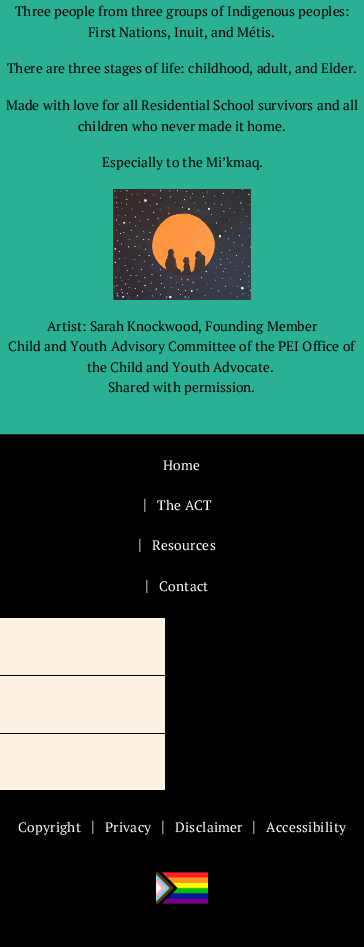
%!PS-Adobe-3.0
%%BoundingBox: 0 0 364 947
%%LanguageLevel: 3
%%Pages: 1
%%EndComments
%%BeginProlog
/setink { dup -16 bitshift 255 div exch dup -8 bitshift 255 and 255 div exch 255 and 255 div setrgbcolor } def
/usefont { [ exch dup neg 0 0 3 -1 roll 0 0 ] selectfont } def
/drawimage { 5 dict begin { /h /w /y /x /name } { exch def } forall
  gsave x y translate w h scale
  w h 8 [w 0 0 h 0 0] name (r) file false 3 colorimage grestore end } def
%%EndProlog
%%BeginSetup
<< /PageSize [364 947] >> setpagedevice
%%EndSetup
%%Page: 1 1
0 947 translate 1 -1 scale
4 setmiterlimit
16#000000 setink
0 0 364 947 rectfill
16#2AB194 setink
0 0 364 434 rectfill
/PTSerif-Regular 13.7 usefont
16#000000 setink
[
    [(Three people from three groups of Indigenous peoples:) 15 16]
    [(First Nations, Inuit, and Métis.) 88 37]
    [(There are three stages of life: childhood, adult, and Elder.) 7 73]
    [(Made with love for all Residential School survivors and all) 6 110]
    [(children who never made it home.) 78 131]
    [(Especially to the Mi’kmaq.) 102 167]
] { aload pop moveto show } forall
(img1.raw) 113 189 138 111 drawimage
[
    [(Artist: Sarah Knockwood, Founding Member) 47 331]
    [(Child and Youth Advisory Committee of the PEI Office of) 8 351]
    [(the Child and Youth Advocate.) 87 372]
    [(Shared with permission.) 108 392]
] { aload pop moveto show } forall
16#262626 setink
0 434 364 1 rectfill
16#FFFFFF setink
163 470 moveto 0.25 0 (Home) ashow
/PTSerif-Regular 16 usefont
143 510 moveto 0.25 0 (|) ashow
/PTSerif-Regular 13.7 usefont
157 510 moveto 0.25 0 (The ACT) ashow
/PTSerif-Regular 16 usefont
138 550 moveto 0.25 0 (|) ashow
/PTSerif-Regular 13.7 usefont
152 550 moveto 0.25 0 (Resources) ashow
/PTSerif-Regular 16 usefont
145 591 moveto 0.25 0 (|) ashow
/PTSerif-Regular 13.7 usefont
159 591 moveto 0.25 0 (Contact) ashow
[
    [0 618 165 57 16#FCF2E4]
    [0 676 165 57 16#FCF2E4]
    [0 734 165 56 16#FCF2E4]
] { aload pop setink rectfill } forall
16#FFFFFF setink
18 832 moveto 0.25 0 (Copyright) ashow
/PTSerif-Regular 16 usefont
91 832 moveto 0.25 0 (|) ashow
/PTSerif-Regular 13.7 usefont
105 832 moveto 0.25 0 (Privacy) ashow
/PTSerif-Regular 16 usefont
161 832 moveto 0.25 0 (|) ashow
/PTSerif-Regular 13.7 usefont
175 832 moveto 0.25 0 (Disclaimer) ashow
/PTSerif-Regular 16 usefont
252 832 moveto 0.25 0 (|) ashow
/PTSerif-Regular 13.7 usefont
266 832 moveto 0.25 0 (Accessibility) ashow
(img2.raw) 156 872 52 32 drawimage
showpage
%%EOF
